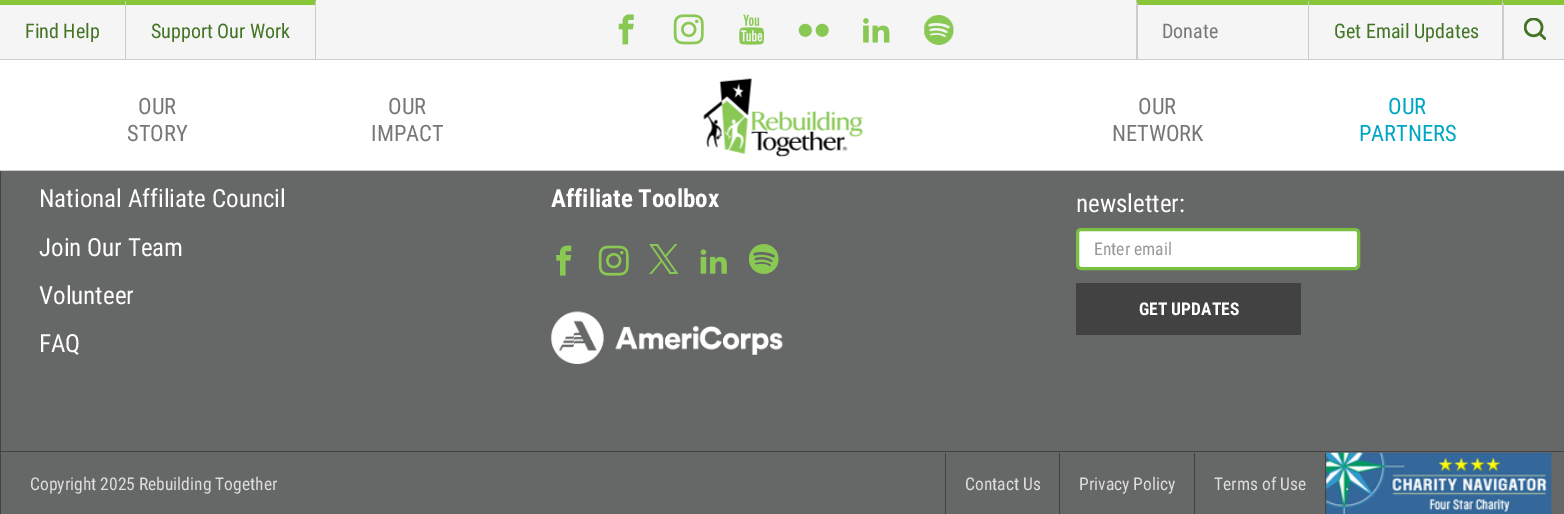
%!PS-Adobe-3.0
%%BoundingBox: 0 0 1564 514
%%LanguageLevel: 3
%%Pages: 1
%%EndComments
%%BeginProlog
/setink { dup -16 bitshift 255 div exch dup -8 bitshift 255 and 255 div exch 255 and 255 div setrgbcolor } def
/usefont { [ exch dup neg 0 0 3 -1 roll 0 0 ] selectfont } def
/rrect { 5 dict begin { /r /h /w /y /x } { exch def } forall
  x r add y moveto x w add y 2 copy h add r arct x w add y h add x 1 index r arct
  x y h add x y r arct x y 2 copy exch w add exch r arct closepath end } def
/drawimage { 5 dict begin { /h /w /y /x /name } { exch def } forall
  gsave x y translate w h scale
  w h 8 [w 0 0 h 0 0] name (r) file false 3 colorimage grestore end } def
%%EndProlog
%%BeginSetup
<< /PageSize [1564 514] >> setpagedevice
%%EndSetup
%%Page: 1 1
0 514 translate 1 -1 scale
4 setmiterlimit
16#666767 setink
0 0 1564 514 rectfill
[
    [0 60 1564 110 16#FFFFFF]
    [0 170 1564 1 16#CCCCCC]
    [0 0 1564 59 16#F5F5F5]
    [0 59 1564 1 16#CCCCCC]
] { aload pop setink rectfill } forall
16#89C538 setink
0 0 moveto 126 0 lineto 125 5 lineto 0 5 lineto closepath fill
16#CCCCCC setink
126 0 moveto 126 59 lineto 125 59 lineto 125 5 lineto closepath fill
/RobotoCondensed-Regular 20 usefont
16#427424 setink
25 38 moveto (Find Help) show
16#89C538 setink
126 0 moveto 316 0 lineto 315 5 lineto 126 5 lineto closepath fill
16#CCCCCC setink
316 0 moveto 316 59 lineto 315 59 lineto 315 5 lineto closepath fill
16#427424 setink
151 38 moveto (Support Our Work) show
(img1.raw) 618 14 16 31 drawimage
(img2.raw) 673 14 31 31 drawimage
(img3.raw) 739 14 25 31 drawimage
(img4.raw) 798 23 31 14 drawimage
(img5.raw) 863 18 27 25 drawimage
(img6.raw) 924 15 31 30 drawimage
16#89C538 setink
1136 0 moveto 1308 0 lineto 1308 5 lineto 1138 5 lineto closepath fill
16#CCCCCC setink
1136 59 moveto 1136 0 lineto 1138 5 lineto 1138 59 lineto closepath fill
16#777777 setink
1162 38 moveto (Donate) show
16#89C538 setink
1308 0 moveto 1504 0 lineto 1504 5 lineto 1309 5 lineto closepath fill
16#CCCCCC setink
1308 59 moveto 1308 0 lineto 1309 5 lineto 1309 59 lineto closepath fill
16#427424 setink
1334 38 moveto (Get Email Updates) show
16#89C538 setink
1502 0 moveto 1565 0 lineto 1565 5 lineto 1504 5 lineto closepath fill
16#CCCCCC setink
1502 60 moveto 1502 0 lineto 1504 5 lineto 1504 60 lineto closepath fill
(img7.raw) 1524 18 22 22 drawimage
/RobotoCondensed-Regular 22.5 usefont
16#777777 setink
[
    [(OUR) 138 114]
    [(STORY) 127 141]
    [(OUR) 388 114]
    [(IMPACT) 371 141]
] { aload pop moveto show } forall
(img8.raw) 703 78 160 79 drawimage
1138 114 moveto (OUR) show
1112 141 moveto (NETWORK) show
16#00A5C3 setink
1388 114 moveto (OUR) show
1359 141 moveto (PARTNERS) show
16#424242 setink
0 171 1 343 rectfill
/RobotoCondensed-Regular 25 usefont
16#FFFFFF setink
[
    [(National Affiliate Council) 39 207]
    [(Join Our Team) 39 256]
    [(Volunteer) 39 304]
    [(FAQ) 39 352]
] { aload pop moveto show } forall
/RobotoCondensed-Bold 25 usefont
551 207 moveto (Affiliate Toolbox) show
(img9.raw) 556 245 16 31 drawimage
(img10.raw) 598 245 31 31 drawimage
(img11.raw) 649 244 30 30 drawimage
(img12.raw) 700 249 27 25 drawimage
(img13.raw) 749 244 30 30 drawimage
(img14.raw) 551 311 232 53 drawimage
/RobotoCondensed-Regular 25 usefont
1076 212 moveto (newsletter:) show
1077.5 229.5 281 39 3.5 rrect gsave fill grestore
16#7AC143 setink
3 setlinewidth
stroke
/RobotoCondensed-Regular 17.5 usefont
16#999999 setink
1094 255 moveto (Enter email) show
16#424242 setink
1076 283 225 52 rectfill
/RobotoCondensed-Bold 17.5 usefont
16#FFFFFF setink
1139 315 moveto (GET UPDATES) show
16#424242 setink
1 451 1563 1 rectfill
/RobotoCondensed-Regular 17.5 usefont
16#DDDDDD setink
30 490 moveto (Copyright 2025 Rebuilding Together) show
16#424242 setink
945 453 1 61 rectfill
16#DDDDDD setink
965 490 moveto (Contact Us) show
16#424242 setink
1059 453 1 61 rectfill
16#DDDDDD setink
1079 490 moveto (Privacy Policy) show
16#424242 setink
1194 453 1 61 rectfill
16#DDDDDD setink
1214 490 moveto (Terms of Use) show
16#424242 setink
1325 453 1 61 rectfill
(img15.raw) 1326 452 226 62 drawimage
16#DDDDDD setink
1345 490 moveto (.) show
showpage
%%EOF
